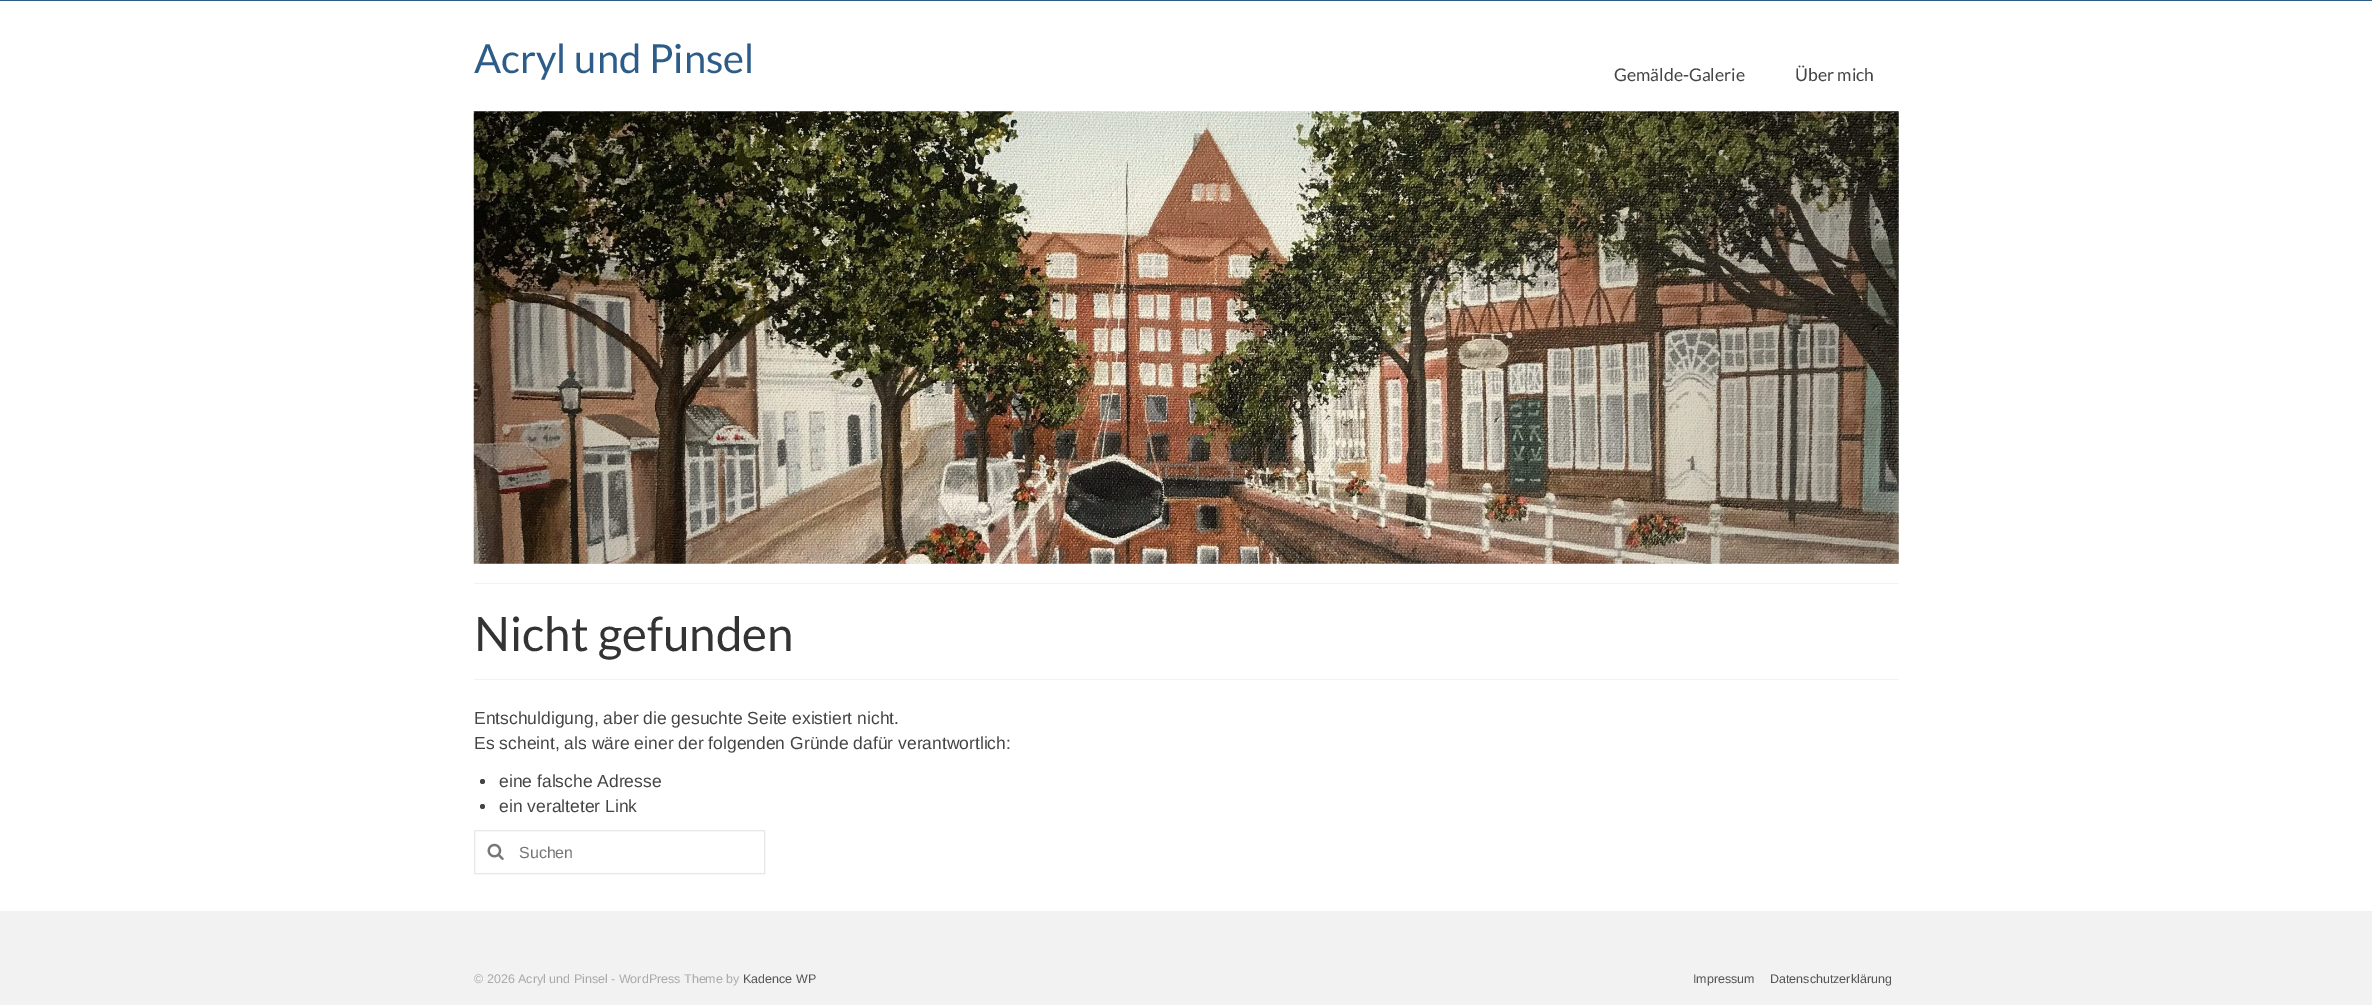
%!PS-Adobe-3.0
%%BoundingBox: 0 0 2372 1005
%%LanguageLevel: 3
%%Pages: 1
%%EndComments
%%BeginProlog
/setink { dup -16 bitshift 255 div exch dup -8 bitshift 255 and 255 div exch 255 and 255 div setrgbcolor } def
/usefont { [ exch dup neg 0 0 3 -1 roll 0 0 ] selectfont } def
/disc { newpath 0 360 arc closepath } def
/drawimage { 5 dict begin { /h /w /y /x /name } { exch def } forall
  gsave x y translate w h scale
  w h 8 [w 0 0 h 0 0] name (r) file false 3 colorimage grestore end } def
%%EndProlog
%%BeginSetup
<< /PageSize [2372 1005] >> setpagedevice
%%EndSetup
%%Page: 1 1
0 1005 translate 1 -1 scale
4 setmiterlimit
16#FFFFFF setink
0 0 2372 1005 rectfill
16#2D5C88 setink
0 0 2372 1 rectfill
/Lato-Regular 40 usefont
474 73 moveto (Acryl und Pinsel) show
/Lato-Regular 17.5 usefont
16#444444 setink
1614 81 moveto (Gemälde-Galerie) show
1795 81 moveto (Über mich) show
(img1.raw) 473 111 1426 453 drawimage
16#F2F2F2 setink
474 583 1425 1 rectfill
474 679 1425 1 rectfill
/Lato-Regular 47.5 usefont
16#333333 setink
474 651 moveto (Nicht gefunden) show
/LiberationSans-Regular 17.5 usefont
16#444444 setink
474 724 moveto (Entschuldigung, aber die gesuchte Seite existiert nicht.) show
474 749 moveto (Es scheint, als wäre einer der folgenden Gründe dafür verantwortlich:) show
482.5 781.5 2.5 disc fill
499 787 moveto (eine falsche Adresse) show
482.5 806.5 2.5 disc fill
499 812 moveto (ein veralteter Link) show
16#E7E7E7 setink
474.5 830.5 290 43 rectstroke
(img2.raw) 487 843 17 17 drawimage
/LiberationSans-Regular 16 usefont
16#757575 setink
519 858 moveto (Suchen) show
16#F2F2F2 setink
0 911 2372 94 rectfill
/LiberationSans-Regular 12.5 usefont
16#AAAAAA setink
474 983 moveto (© 2026 Acryl und Pinsel - WordPress Theme by) show
16#555555 setink
[
    [(Kadence WP) 743 983]
    [(Impressum) 1693 983]
    [(Datenschutzerklärung) 1770 983]
] { aload pop moveto show } forall
showpage
%%EOF
